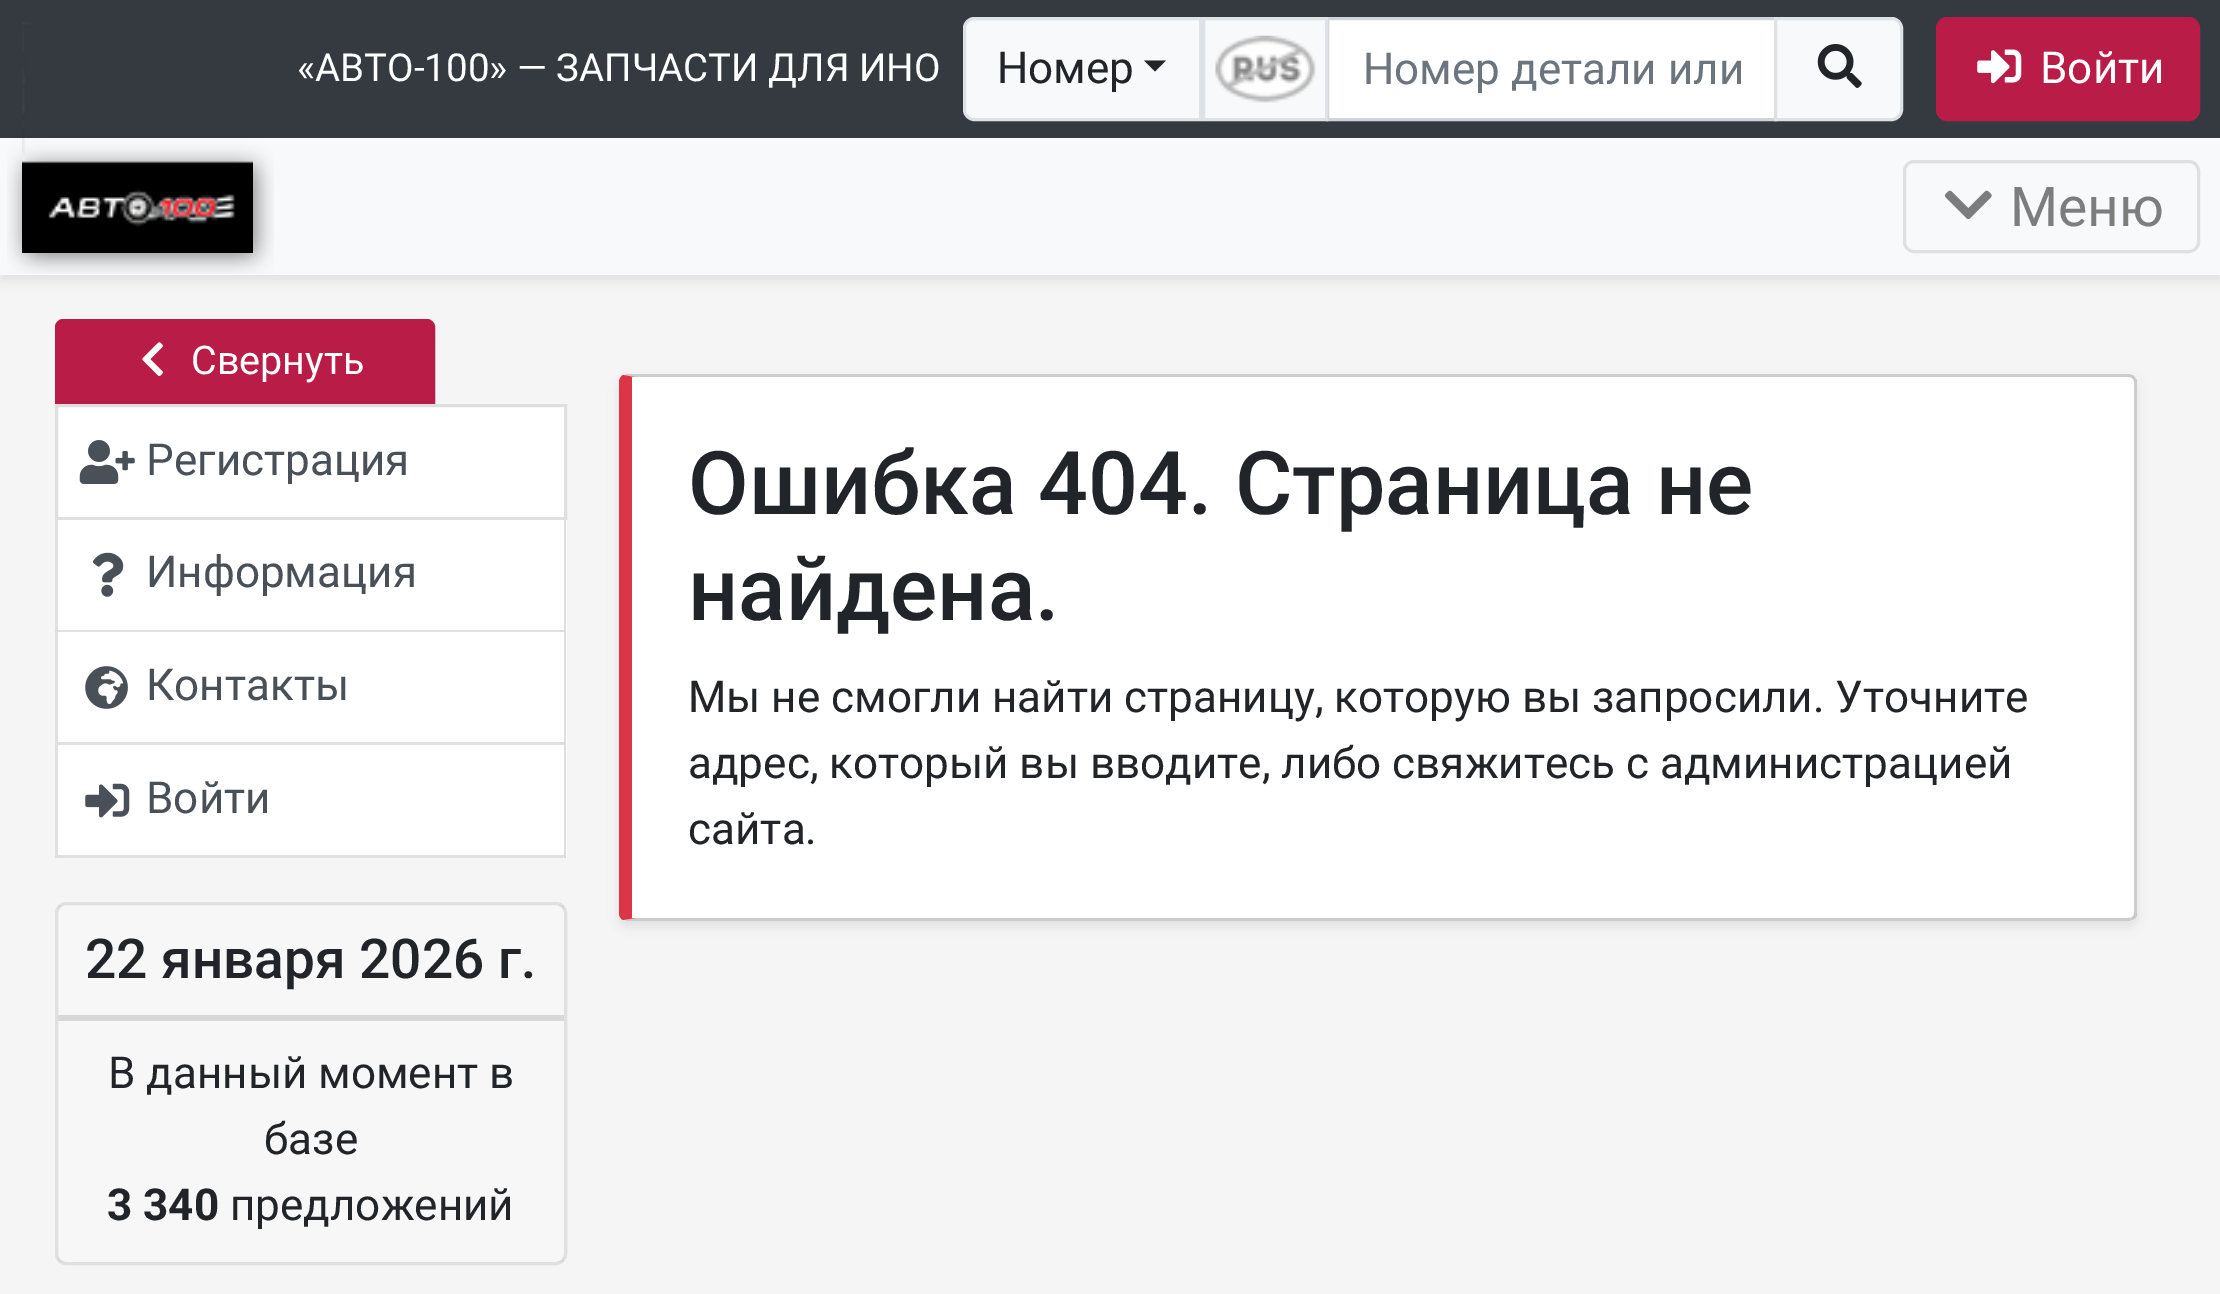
%!PS-Adobe-3.0
%%BoundingBox: 0 0 2220 1294
%%LanguageLevel: 3
%%Pages: 1
%%EndComments
%%BeginProlog
/setink { dup -16 bitshift 255 div exch dup -8 bitshift 255 and 255 div exch 255 and 255 div setrgbcolor } def
/usefont { [ exch dup neg 0 0 3 -1 roll 0 0 ] selectfont } def
/setalpha { dup .setfillconstantalpha .setstrokeconstantalpha } def
/rrect { 5 dict begin { /r /h /w /y /x } { exch def } forall
  x r add y moveto x w add y 2 copy h add r arct x w add y h add x 1 index r arct
  x y h add x y r arct x y 2 copy exch w add exch r arct closepath end } def
/softshadow { 12 dict begin { /a /b /q /h /w /y /x } { exch def } forall gsave /was 0 def
  9 -2 -9 { dup b mul 4 div /e exch def 1 sub .425 mul 2.718 exch exp 1 add a .99 .min exch div /now exch def
    1 1 now sub 1 was sub div sub setalpha /was now def
    w h .min e 2 mul add 0 gt { x e sub y e sub w e 2 mul add h e 2 mul add
      q e add b .6 mul add w h .min 2 div e add .min 0 .max rrect fill } if } for grestore end } def
/drawimage { 5 dict begin { /h /w /y /x /name } { exch def } forall
  gsave x y translate w h scale
  w h 8 [w 0 0 h 0 0] name (r) file false 3 colorimage grestore end } def
%%EndProlog
%%BeginSetup
<< /PageSize [2220 1294] /PageUsesTransparency true >> setpagedevice
%%EndSetup
%%Page: 1 1
0 .pushpdf14devicefilter
0 1294 translate 1 -1 scale
4 setmiterlimit
16#F5F5F5 setink
0 0 2220 1294 rectfill
16#000000 setink
0 143 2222 138 0 5.5 0.07 softshadow
16#343A40 setink
0 0 2220 138 rectfill
16#F8F9FA setink
0 138 2220 137 rectfill
(img1.raw) 7 22 267 252 drawimage
/Roboto-Regular 38.5 usefont
16#FFFFFF setink
297 81 moveto («АВТО-100» — ЗАПЧАСТИ ДЛЯ ИНО) show
16#F8F9FA setink
974 18.5 moveto 1200.5 18.5 lineto 1200.5 119.5 lineto 974 119.5 lineto 969 119.5 964.5 115 964.5 110 curveto 964.5 28 lineto 964.5 23 969 18.5 974 18.5 curveto closepath gsave fill grestore
16#DEE2E6 setink
3 setlinewidth
stroke
/Roboto-Regular 44 usefont
16#212529 setink
997 83 moveto (Номер) show
1144 60.5 moveto 1166 60.5 lineto 1155 71.5 lineto closepath fill
16#FFFFFF setink
1327.5 18.5 moveto 1775.5 18.5 lineto 1775.5 119.5 lineto 1327.5 119.5 lineto closepath gsave fill grestore
16#CED4DA setink
stroke
16#F8F9FA setink
1203.5 18.5 moveto 1326.5 18.5 lineto 1326.5 119.5 lineto 1203.5 119.5 lineto closepath gsave fill grestore
16#DEE2E6 setink
stroke
(img2.raw) 1215 35 101 68 drawimage
16#6C757D setink
1363 84 moveto (Номер детали или) show
16#F8F9FA setink
1775.5 18.5 moveto 1892 18.5 lineto 1897 18.5 1901.5 23 1901.5 28 curveto 1901.5 110 lineto 1901.5 115 1897 119.5 1892 119.5 curveto 1775.5 119.5 lineto closepath gsave fill grestore
16#DEE2E6 setink
stroke
(img3.raw) 1817 44 45 44 drawimage
16#B91D47 setink
1937.5 18.5 261 101 9.5 rrect gsave fill grestore
stroke
(img4.raw) 1977 49 45 35 drawimage
16#FFFFFF setink
2040 83 moveto (Войти) show
16#DFE0E1 setink
1904.5 161.5 294 90 9.5 rrect stroke
(img5.raw) 1944 190 48 30 drawimage
/Roboto-Regular 55 usefont
16#7C7D7D setink
2010 226 moveto (Меню) show
16#B91D47 setink
63 320.5 moveto 427 320.5 lineto 430.5 320.5 433.5 323.5 433.5 327 curveto 433.5 405.5 lineto 56.5 405.5 lineto 56.5 327 lineto 56.5 323.5 59.5 320.5 63 320.5 curveto closepath gsave fill grestore
stroke
(img6.raw) 142 342 21 34 drawimage
/Roboto-Regular 39.5 usefont
16#FFFFFF setink
191 374 moveto (Свернуть) show
56.5 405.5 moveto 565.5 405.5 lineto 565.5 518.5 lineto 56.5 518.5 lineto closepath gsave fill grestore
16#DFDFDF setink
stroke
(img7.raw) 79 440 56 44 drawimage
/Roboto-Regular 44 usefont
16#495057 setink
146 475 moveto (Регистрация) show
16#FFFFFF setink
55 520 512 338 rectfill
16#DFDFDF setink
566 520 moveto 566 632 lineto 564 630 lineto 564 520 lineto closepath fill
0.12 setalpha
16#000000 setink
566 632 moveto 55 632 lineto 58 630 lineto 564 630 lineto closepath fill
55 632 moveto 55 520 lineto 58 520 lineto 58 630 lineto closepath fill
1 setalpha
(img8.raw) 92 552 32 45 drawimage
16#495057 setink
146 587 moveto (Информация) show
16#DFDFDF setink
566 632 moveto 566 745 lineto 564 742 lineto 564 632 lineto closepath fill
0.12 setalpha
16#000000 setink
566 745 moveto 55 745 lineto 58 742 lineto 564 742 lineto closepath fill
55 745 moveto 55 632 lineto 58 632 lineto 58 742 lineto closepath fill
1 setalpha
(img9.raw) 85 666 43 43 drawimage
16#495057 setink
146 700 moveto (Контакты) show
16#DFDFDF setink
566 745 moveto 566 858 lineto 564 855 lineto 564 745 lineto closepath fill
0.12 setalpha
16#000000 setink
566 858 moveto 55 858 lineto 58 855 lineto 564 855 lineto closepath fill
55 858 moveto 55 745 lineto 58 745 lineto 58 855 lineto closepath fill
1 setalpha
(img10.raw) 85 783 45 35 drawimage
16#495057 setink
146 813 moveto (Войти) show
16#FFFFFF setink
55 902 512 363 11 rrect fill
0.12 setalpha
16#000000 setink
56.5 903.5 509 360 9.5 rrect stroke
0.03 setalpha
58 905 506 110 rectfill
1 setalpha
16#D8D8D8 setink
58 1015 506 6 rectfill
/Roboto-Medium 55 usefont
16#212529 setink
85 978 moveto (22 января 2026 г.) show
0.03 setalpha
16#000000 setink
58 1021 506 241 rectfill
/Roboto-Regular 44 usefont
1 setalpha
16#212529 setink
108 1088 moveto (В данный момент в) show
264 1154 moveto (базе) show
/Roboto-Bold 44 usefont
107 1220 moveto (3 340) show
/Roboto-Regular 44 usefont
230 1220 moveto (предложений) show
16#000000 setink
619 380 1518 547 8 5.5 0.07 softshadow
16#FFFFFF setink
619 374 1518 547 8 rrect fill
16#CCCCCC setink
627 374 moveto 623 375 lineto 634 377 lineto 2128 377 lineto 2130 377 2131 377 2132 378 curveto 2134 376 lineto 2133 375 2130 374 2128 374 curveto closepath fill
0.2 setalpha
16#000000 setink
2137 915 moveto 2136 917 2136 918 2134 919 curveto 2132 917 lineto 2133 916 2134 915 2134 913 curveto 2134 382 lineto 2134 380 2133 379 2132 378 curveto 2134 376 lineto 2137 380 lineto closepath fill
2134 919 moveto 2133 920 2130 921 2128 921 curveto 627 921 lineto 623 920 lineto 635 918 lineto 2128 918 lineto 2130 918 2131 918 2132 917 curveto closepath fill
1 setalpha
16#DC3545 setink
632 377 moveto 634 377 lineto 623 375 lineto 621 376 619 379 619 382 curveto 619 913 lineto 619 917 621 919 623 920 curveto 635 918 lineto 632 918 lineto closepath fill
/Roboto-Medium 88 usefont
16#212529 setink
688 514 moveto (Ошибка 404. Страница не) show
688 620 moveto (найдена.) show
/Roboto-Regular 44 usefont
[
    [(Мы не смогли найти страницу, которую вы запросили. Уточните) 688 712]
    [(адрес, который вы вводите, либо свяжитесь с администрацией) 688 778]
    [(сайта.) 688 844]
] { aload pop moveto show } forall
.poppdf14devicefilter showpage
%%EOF
